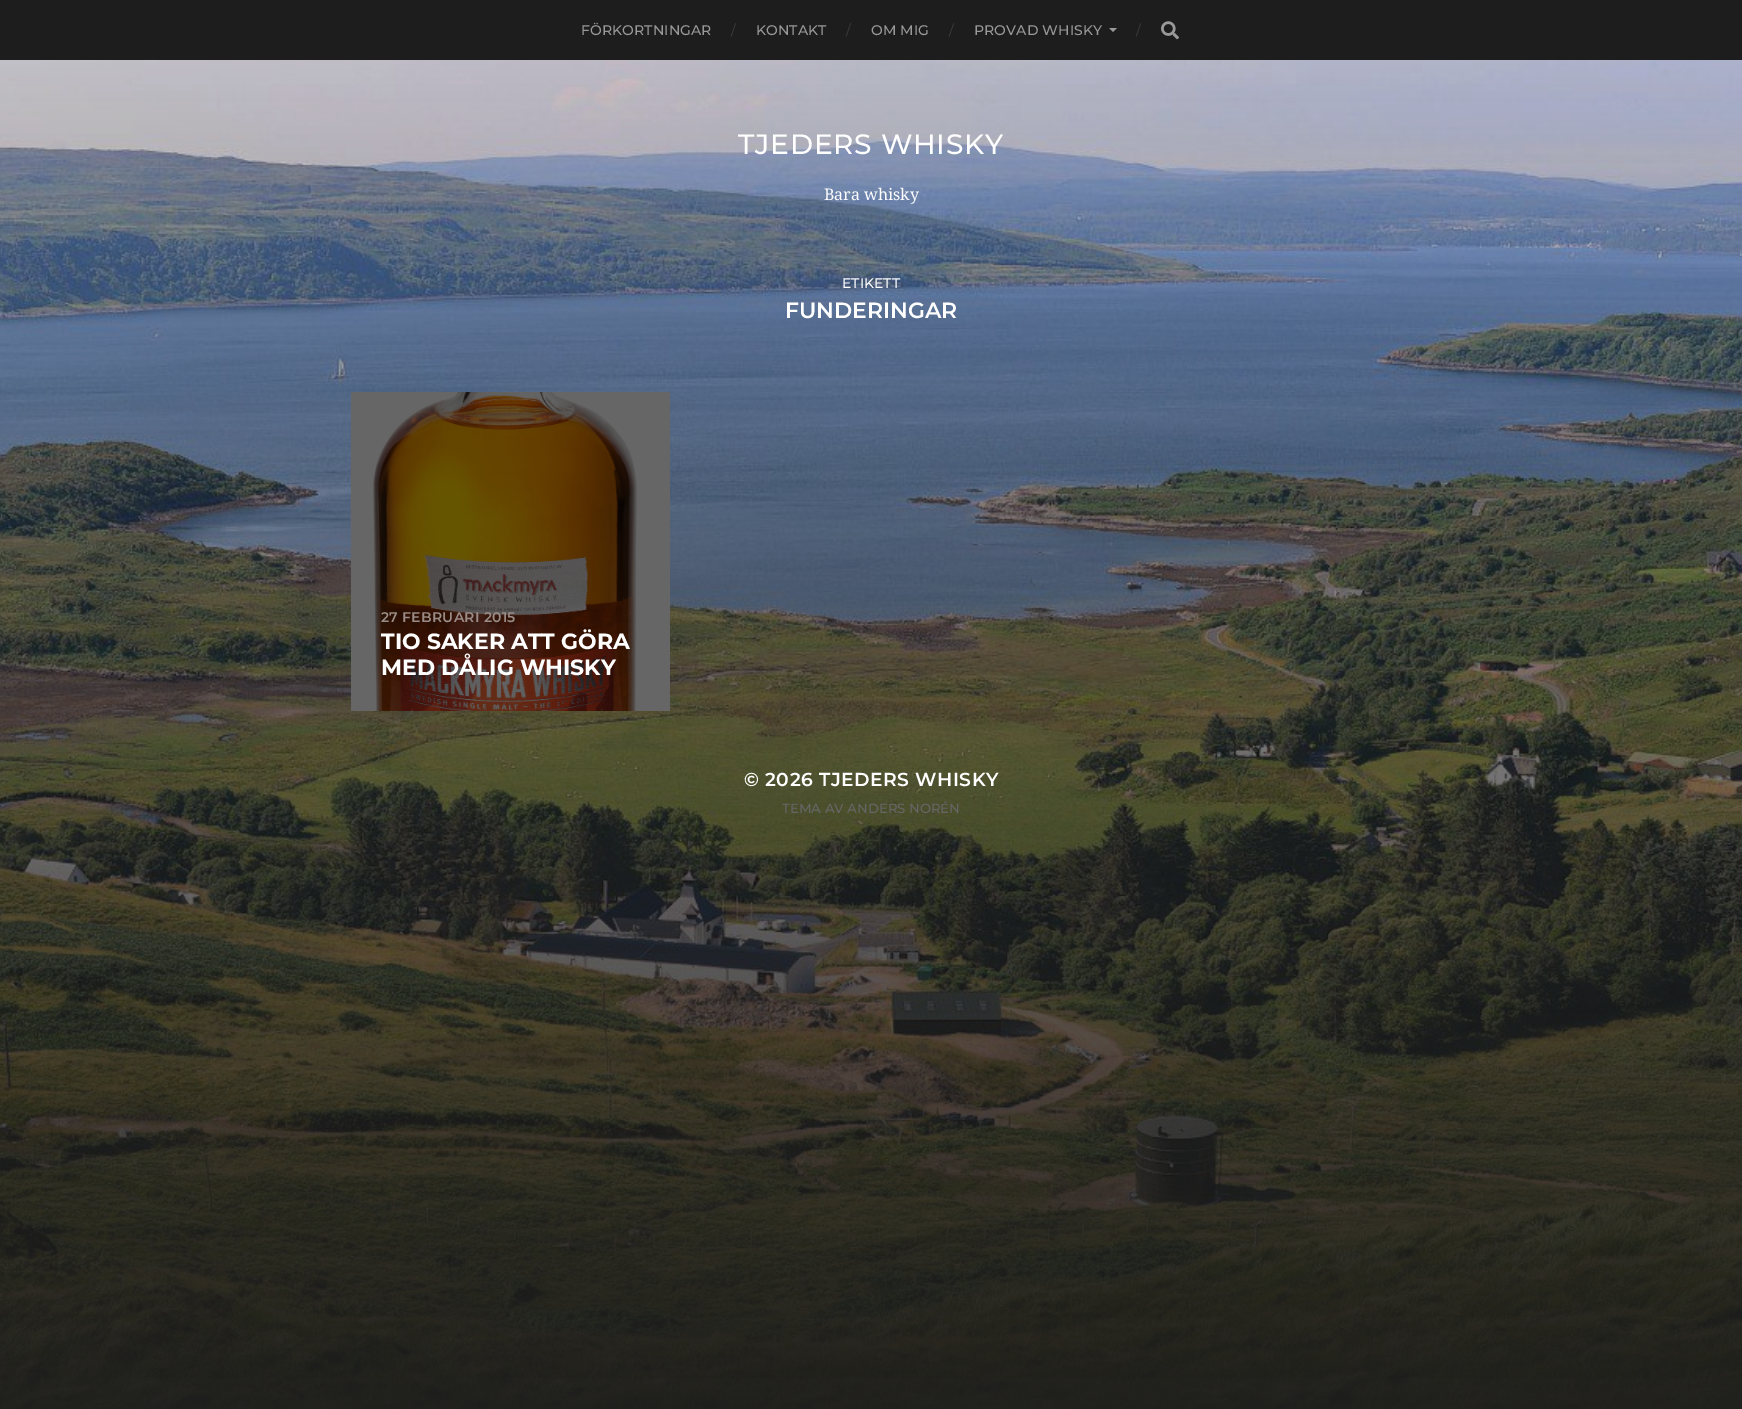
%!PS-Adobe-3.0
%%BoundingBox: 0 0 1742 1409
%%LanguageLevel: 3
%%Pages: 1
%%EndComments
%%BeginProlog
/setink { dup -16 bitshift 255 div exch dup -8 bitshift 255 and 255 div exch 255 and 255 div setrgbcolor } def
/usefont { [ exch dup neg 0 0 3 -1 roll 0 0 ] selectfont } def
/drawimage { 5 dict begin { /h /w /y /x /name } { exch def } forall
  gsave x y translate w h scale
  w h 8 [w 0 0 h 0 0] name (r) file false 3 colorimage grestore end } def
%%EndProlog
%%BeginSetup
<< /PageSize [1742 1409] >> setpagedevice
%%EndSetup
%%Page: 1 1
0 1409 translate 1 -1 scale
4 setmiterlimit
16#1D1D1D setink
0 0 1742 1409 rectfill
/Montserrat-Medium 14 usefont
16#999999 setink
581 35 moveto 0.1 0 (FÖRKORTNINGAR) ashow
/Montserrat-Regular 14 usefont
16#3D3D3D setink
731 35 moveto (/) show
/Montserrat-Medium 14 usefont
16#999999 setink
756 35 moveto 0.1 0 (KONTAKT) ashow
/Montserrat-Regular 14 usefont
16#3D3D3D setink
846 35 moveto (/) show
/Montserrat-Medium 14 usefont
16#999999 setink
871 35 moveto 0.1 0 (OM MIG) ashow
/Montserrat-Regular 14 usefont
16#3D3D3D setink
949 35 moveto (/) show
/Montserrat-Medium 14 usefont
16#999999 setink
974 35 moveto 0.1 0 (PROVAD WHISKY) ashow
1109 28 moveto 1117 28 lineto 1113 32 lineto closepath fill
/Montserrat-Regular 14 usefont
16#3D3D3D setink
1136 35 moveto (/) show
(img1.raw) 1161 21 18 19 drawimage
(img2.raw) 0 60 1742 1349 drawimage
/Montserrat-Medium 28 usefont
16#FFFFFF setink
738 154 moveto 0.75 0 (TJEDERS WHISKY) ashow
/DroidSerif-Regular 16 usefont
824 200 moveto (Bara whisky) show
/Montserrat-Medium 14 usefont
842 288 moveto (ETIKETT) show
/Montserrat-SemiBold 22 usefont
785 318 moveto (FUNDERINGAR) show
(img3.raw) 351 392 319 319 drawimage
/Montserrat-SemiBold 14 usefont
16#9A8C86 setink
381 622 moveto 0.25 0 (27 FEBRUARI 2015) ashow
/Montserrat-Bold 22 usefont
16#FFFFFF setink
381 649 moveto (TIO SAKER ATT GÖRA) show
381 675 moveto (MED DÅLIG WHISKY) show
/Montserrat-SemiBold 18.75 usefont
744 786 moveto 0.5 0 (© 2026 TJEDERS WHISKY) ashow
/Montserrat-Medium 13.25 usefont
16#666666 setink
782 813 moveto (TEMA AV ANDERS NORÉN) show
showpage
%%EOF
